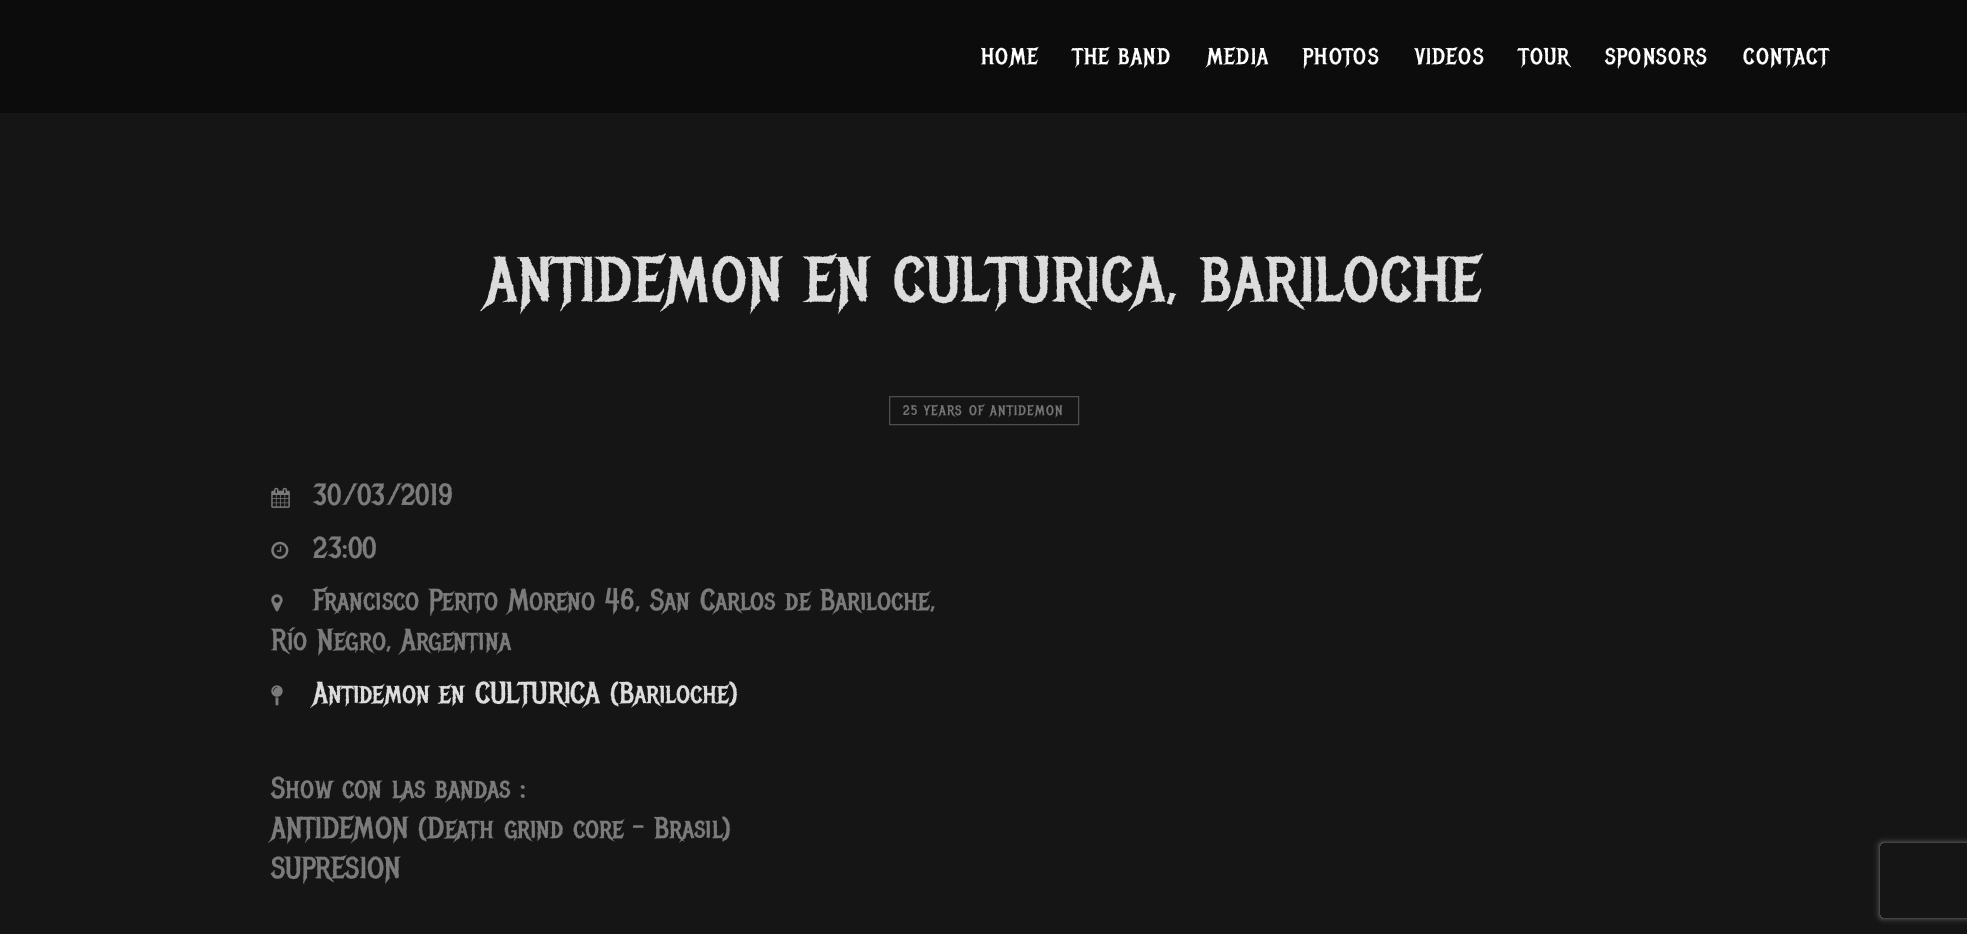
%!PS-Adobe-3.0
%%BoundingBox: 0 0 1967 934
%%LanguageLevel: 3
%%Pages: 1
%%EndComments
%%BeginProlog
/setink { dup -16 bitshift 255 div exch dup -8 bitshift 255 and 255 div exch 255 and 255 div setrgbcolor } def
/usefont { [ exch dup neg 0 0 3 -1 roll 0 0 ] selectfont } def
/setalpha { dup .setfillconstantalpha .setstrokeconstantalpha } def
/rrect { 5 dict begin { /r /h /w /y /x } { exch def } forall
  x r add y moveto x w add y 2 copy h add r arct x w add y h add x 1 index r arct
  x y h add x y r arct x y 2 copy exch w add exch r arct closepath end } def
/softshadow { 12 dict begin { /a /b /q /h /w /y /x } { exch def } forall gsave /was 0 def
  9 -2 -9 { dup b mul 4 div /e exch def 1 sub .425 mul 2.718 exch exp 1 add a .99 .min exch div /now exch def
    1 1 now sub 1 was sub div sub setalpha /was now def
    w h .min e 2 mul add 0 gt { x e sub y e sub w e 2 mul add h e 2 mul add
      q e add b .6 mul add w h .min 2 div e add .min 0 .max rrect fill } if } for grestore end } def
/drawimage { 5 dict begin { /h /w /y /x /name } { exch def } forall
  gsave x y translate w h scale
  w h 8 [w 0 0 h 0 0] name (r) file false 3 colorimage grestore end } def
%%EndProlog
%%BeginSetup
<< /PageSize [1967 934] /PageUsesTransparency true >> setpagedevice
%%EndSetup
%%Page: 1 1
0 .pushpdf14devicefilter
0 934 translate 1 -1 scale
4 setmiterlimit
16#151515 setink
0 0 1967 934 rectfill
16#0C0C0C setink
0 0 1967 113 rectfill
/MetalMania-Regular 22.5 usefont
16#FFFFFF setink
981 64 moveto 1.25 0 (HOME) ashow
1073 64 moveto 1.25 0 (THE BAND) ashow
1207 64 moveto 1.25 0 (MEDIA) ashow
1303 64 moveto 1.25 0 (PHOTOS) ashow
1415 64 moveto 1.25 0 (VIDEOS) ashow
1519 64 moveto 1.25 0 (TOUR) ashow
1605 64 moveto 1.25 0 (SPONSORS) ashow
1743 64 moveto 1.25 0 (CONTACT) ashow
/MetalMania-Regular 62.5 usefont
16#DCDCDC setink
486 301 moveto 1.25 0 (ANTIDEMON EN CULTURICA, BARILOCHE) ashow
16#4E4E4E setink
889.5 396.5 189 28 rectstroke
/MetalMania-Regular 13.75 usefont
16#757575 setink
903 415 moveto 1.25 0 (25 YEARS OF ANTIDEMON) ashow
(img1.raw) 271 487 19 21 drawimage
/MetalMania-Regular 30 usefont
16#7B7B7B setink
313 505 moveto (30/03/2019) show
(img2.raw) 271 541 18 18 drawimage
313 558 moveto (23:00) show
(img3.raw) 271 594 12 18 drawimage
313 610 moveto (Francisco Perito Moreno 46, San Carlos de Bariloche,) show
271 650 moveto (Río Negro, Argentina) show
(img4.raw) 271 685 12 21 drawimage
16#DCDCDC setink
313 703 moveto (Antidemon en CULTURICA \(Bariloche\)) show
16#7B7B7B setink
[
    [(Show con las bandas :) 271 798]
    [(ANTIDEMON \(Death grind core – Brasil\)) 271 838]
    [(SUPRESION) 271 878]
] { aload pop moveto show } forall
gsave
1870 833 moveto 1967 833 lineto 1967 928 lineto 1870 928 lineto closepath 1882.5 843 moveto 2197.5 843 lineto 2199 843 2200 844 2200 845.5 curveto 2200 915.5 lineto 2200 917 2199 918 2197.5 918 curveto 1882.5 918 lineto 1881 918 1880 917 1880 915.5 curveto 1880 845.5 lineto 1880 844 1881 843 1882.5 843 curveto closepath eoclip newpath
16#808080 setink
1880 843 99 75 2.5 3 1 softshadow
grestore
.poppdf14devicefilter showpage
%%EOF
